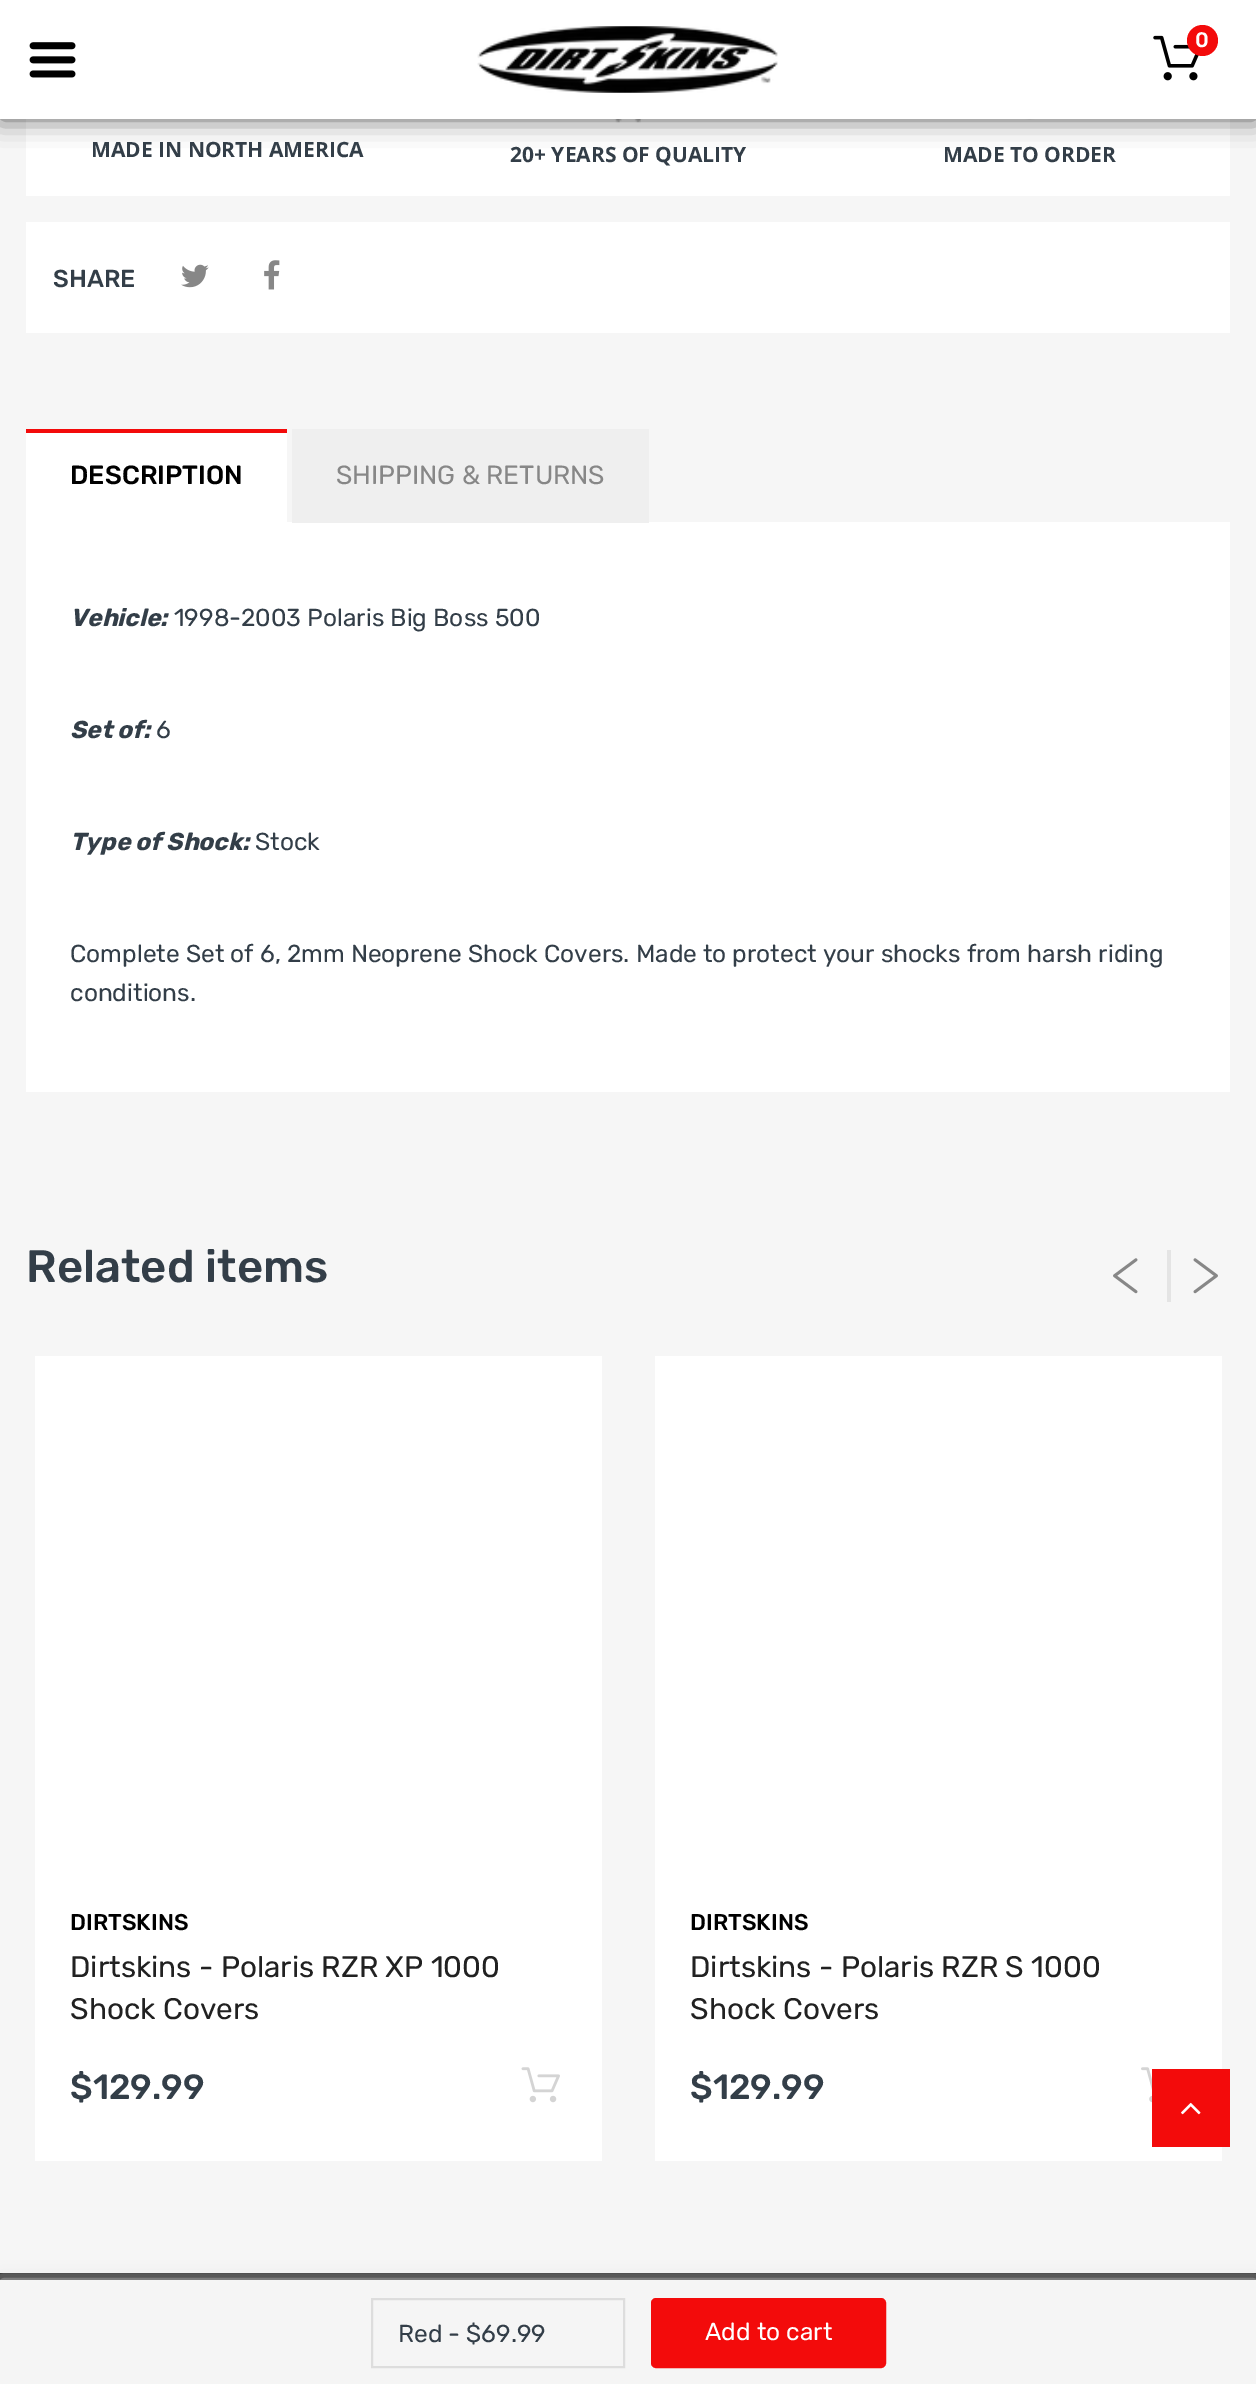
%!PS-Adobe-3.0
%%BoundingBox: 0 0 1256 2384
%%LanguageLevel: 3
%%Pages: 1
%%EndComments
%%BeginProlog
/setink { dup -16 bitshift 255 div exch dup -8 bitshift 255 and 255 div exch 255 and 255 div setrgbcolor } def
/usefont { [ exch dup neg 0 0 3 -1 roll 0 0 ] selectfont } def
/setalpha { dup .setfillconstantalpha .setstrokeconstantalpha } def
/disc { newpath 0 360 arc closepath } def
/rrect { 5 dict begin { /r /h /w /y /x } { exch def } forall
  x r add y moveto x w add y 2 copy h add r arct x w add y h add x 1 index r arct
  x y h add x y r arct x y 2 copy exch w add exch r arct closepath end } def
/softshadow { 12 dict begin { /a /b /q /h /w /y /x } { exch def } forall gsave /was 0 def
  9 -2 -9 { dup b mul 4 div /e exch def 1 sub .425 mul 2.718 exch exp 1 add a .99 .min exch div /now exch def
    1 1 now sub 1 was sub div sub setalpha /was now def
    w h .min e 2 mul add 0 gt { x e sub y e sub w e 2 mul add h e 2 mul add
      q e add b .6 mul add w h .min 2 div e add .min 0 .max rrect fill } if } for grestore end } def
/drawimage { 5 dict begin { /h /w /y /x /name } { exch def } forall
  gsave x y translate w h scale
  w h 8 [w 0 0 h 0 0] name (r) file false 3 colorimage grestore end } def
%%EndProlog
%%BeginSetup
<< /PageSize [1256 2384] /PageUsesTransparency true >> setpagedevice
%%EndSetup
%%Page: 1 1
0 .pushpdf14devicefilter
0 2384 translate 1 -1 scale
4 setmiterlimit
16#F6F6F6 setink
0 0 1256 2384 rectfill
16#FFFFFF setink
26 119 1204 77 rectfill
(img4.raw) 600 119 55 4 drawimage
(img5.raw) 1006 119 48 1 drawimage
16#000000 setink
0 0 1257 119 0 13 0.65 softshadow
16#FFFFFF setink
0 0 1256 119 rectfill
(img1.raw) 477 26 301 67 drawimage
(img2.raw) 1153 35 46 46 drawimage
16#F30B0B setink
1202.5 40.5 15.5 disc fill
/Rubik-Medium 21 usefont
16#FFFFFF setink
1195 47 moveto (0) show
(img3.raw) 29 42 47 36 drawimage
/OpenSans-Bold 21 usefont
16#333E48 setink
[
    [(MADE IN NORTH AMERICA) 91 157]
    [(20+ YEARS OF QUALITY) 510 162]
    [(MADE TO ORDER) 943 162]
] { aload pop moveto show } forall
16#FFFFFF setink
26 222 1204 111 rectfill
/Rubik-Medium 24.5 usefont
16#333E48 setink
53 287 moveto (SHARE) show
(img6.raw) 181 264 28 24 drawimage
(img7.raw) 264 260 16 30 drawimage
16#FFFFFF setink
26 433 261 89 rectfill
16#F30B0B setink
26 429 261 4 rectfill
/Rubik-Medium 26.25 usefont
16#000000 setink
70 484 moveto (DESCRIPTION) show
16#FFFFFF setink
26 522 1204 570 rectfill
16#EFEFEF setink
292 429 357 94 rectfill
/Rubik-Regular 26.25 usefont
16#878787 setink
336 484 moveto (SHIPPING & RETURNS) show
/Rubik-BoldItalic 24.5 usefont
16#333E48 setink
70 626 moveto (Vehicle:) show
/Rubik-Regular 24.5 usefont
174 626 moveto (1998-2003 Polaris Big Boss 500) show
/Rubik-BoldItalic 24.5 usefont
70 738 moveto (Set of:) show
/Rubik-Regular 24.5 usefont
156 738 moveto (6) show
/Rubik-BoldItalic 24.5 usefont
70 850 moveto (Type of Shock:) show
/Rubik-Regular 24.5 usefont
[
    [(Stock) 255 850]
    [(Complete Set of 6, 2mm Neoprene Shock Covers. Made to protect your shocks from harsh riding) 70 962]
    [(conditions.) 70 1001]
] { aload pop moveto show } forall
/Rubik-Medium 45.5 usefont
26 1282 moveto (Related items) show
16#E4E4E4 setink
1167 1250 4 52 rectfill
(img8.raw) 1113 1258 25 36 drawimage
(img9.raw) 1193 1258 25 36 drawimage
16#FFFFFF setink
35 1356 567 805 rectfill
/Rubik-Medium 22.75 usefont
16#000000 setink
70 1930 moveto (DIRTSKINS) show
/Rubik-Regular 29.75 usefont
16#212121 setink
70 1977 moveto (Dirtskins - Polaris RZR XP 1000) show
70 2019 moveto (Shock Covers) show
/Rubik-Medium 35 usefont
16#333E48 setink
70 2099 moveto ($129.99) show
(img10.raw) 521 2067 39 36 drawimage
16#FFFFFF setink
655 1356 567 805 rectfill
/Rubik-Medium 22.75 usefont
16#000000 setink
690 1930 moveto (DIRTSKINS) show
/Rubik-Regular 29.75 usefont
16#212121 setink
690 1977 moveto (Dirtskins - Polaris RZR S 1000) show
690 2019 moveto (Shock Covers) show
/Rubik-Medium 35 usefont
16#333E48 setink
690 2099 moveto ($129.99) show
(img11.raw) 1141 2067 11 36 drawimage
16#212121 setink
0 2273 1256 7 rectfill
16#F30B0B setink
1152 2069 78 78 rectfill
(img12.raw) 1181 2102 20 13 drawimage
16#DDDDDD setink
0 2280 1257 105 0 9 1 softshadow
16#F5F5F5 setink
0 2280 1256 104 rectfill
16#DDDDDD setink
2 setlinewidth
372 2299 252 68 rectstroke
/Rubik-Regular 24.5 usefont
16#333E48 setink
398 2342 moveto (Red - $69.99) show
16#F30B0B setink
652 2299 233 68 4 rrect gsave fill grestore
stroke
16#FFFFFF setink
705 2340 moveto (Add to cart) show
.poppdf14devicefilter showpage
%%EOF
